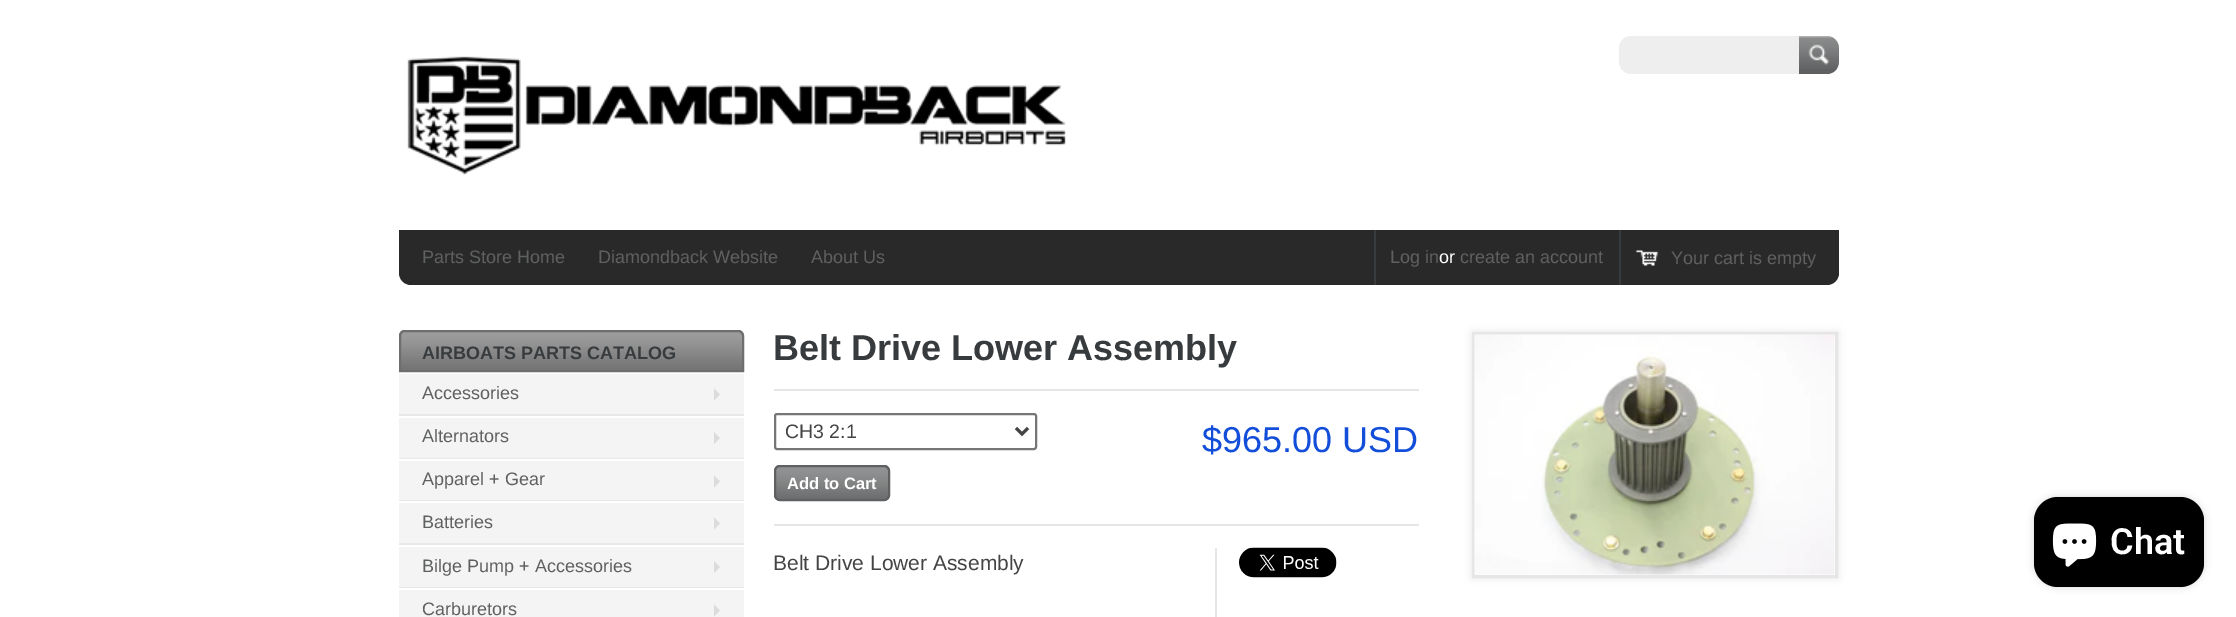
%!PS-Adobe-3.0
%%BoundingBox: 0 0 2236 617
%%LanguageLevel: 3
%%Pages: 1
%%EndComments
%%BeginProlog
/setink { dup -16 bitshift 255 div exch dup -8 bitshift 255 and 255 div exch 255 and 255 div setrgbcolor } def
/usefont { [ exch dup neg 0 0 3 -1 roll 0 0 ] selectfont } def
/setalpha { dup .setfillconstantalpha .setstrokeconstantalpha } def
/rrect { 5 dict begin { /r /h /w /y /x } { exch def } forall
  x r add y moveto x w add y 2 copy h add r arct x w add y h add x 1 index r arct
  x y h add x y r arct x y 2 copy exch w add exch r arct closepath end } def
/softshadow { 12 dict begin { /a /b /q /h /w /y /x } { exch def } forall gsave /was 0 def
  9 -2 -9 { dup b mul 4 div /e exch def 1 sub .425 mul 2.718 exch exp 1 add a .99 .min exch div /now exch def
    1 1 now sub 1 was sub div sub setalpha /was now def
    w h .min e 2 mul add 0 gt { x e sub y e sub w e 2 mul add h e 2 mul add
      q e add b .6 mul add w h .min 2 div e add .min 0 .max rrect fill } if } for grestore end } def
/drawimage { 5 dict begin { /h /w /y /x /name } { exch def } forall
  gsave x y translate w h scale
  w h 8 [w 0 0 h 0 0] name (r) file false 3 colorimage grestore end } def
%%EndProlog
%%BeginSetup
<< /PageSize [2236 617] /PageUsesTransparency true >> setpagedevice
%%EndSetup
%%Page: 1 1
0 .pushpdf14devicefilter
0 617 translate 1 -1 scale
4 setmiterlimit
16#FFFFFF setink
0 0 2236 617 rectfill
(img1.raw) 407 56 659 119 drawimage
16#EEEEEE setink
1631 36 moveto 1799 36 lineto 1799 74 lineto 1631 74 lineto 1624.5 74 1619 68.5 1619 62 curveto 1619 48 lineto 1619 41.5 1624.5 36 1631 36 curveto closepath fill
16#5F6061 setink
1799 36 moveto 1827 36 lineto 1833.5 36 1839 41.5 1839 48 curveto 1839 62 lineto 1839 68.5 1833.5 74 1827 74 curveto 1799 74 lineto closepath fill
(img2.raw) 1799 36 40 33 drawimage
16#292929 setink
399 230 moveto 1839 230 lineto 1839 273 lineto 1839 279.5 1833.5 285 1827 285 curveto 411 285 lineto 404.5 285 399 279.5 399 273 curveto closepath fill
/LiberationSans-Regular 18 usefont
16#5F6061 setink
[
    [(Parts Store Home) 422 263]
    [(Diamondback Website) 598 263]
    [(About Us) 811 263]
] { aload pop moveto show } forall
16#383B3D setink
1374 230 2 55 rectfill
16#5F6061 setink
1390 263 moveto (Log in) show
16#FFFFFF setink
1439 263 moveto (or) show
16#5F6061 setink
1460 263 moveto (create an account) show
16#383B3D setink
1619 230 2 55 rectfill
(img3.raw) 1635 250 24 16 drawimage
16#5F6061 setink
1671 264 moveto (Your cart is empty) show
16#6E6E6E setink
405 330 moveto 738 330 lineto 741.5 330 744 332.5 744 336 curveto 744 372 lineto 399 372 lineto 399 336 lineto 399 332.5 401.5 330 405 330 curveto closepath fill
(img4.raw) 399 331 345 39 drawimage
2 setlinewidth
405 331 moveto 738 331 lineto 741 331 743 333 743 336 curveto 743 371 lineto 400 371 lineto 400 336 lineto 400 333 402 331 405 331 curveto closepath stroke
/LiberationSans-Bold 18 usefont
16#383B3D setink
422 359 moveto (AIRBOATS PARTS CATALOG) show
16#F4F4F4 setink
399 374 345 40 rectfill
16#E8E8E8 setink
399 414 345 2 rectfill
/LiberationSans-Regular 18 usefont
16#5F6061 setink
422 399 moveto (Accessories) show
16#DBDBDB setink
714 400.5 moveto 714 388.5 lineto 720 394.5 lineto closepath fill
16#F4F4F4 setink
399 418 345 40 rectfill
16#E8E8E8 setink
399 458 345 1 rectfill
16#5F6061 setink
422 442 moveto (Alternators) show
16#DBDBDB setink
714 444 moveto 714 432 lineto 720 438 lineto closepath fill
16#F4F4F4 setink
399 461 345 39 rectfill
16#E8E8E8 setink
399 500 345 1 rectfill
16#5F6061 setink
422 485 moveto (Apparel + Gear) show
16#DBDBDB setink
714 487.5 moveto 714 475.5 lineto 720 481.5 lineto closepath fill
16#F4F4F4 setink
399 503 345 40 rectfill
16#E8E8E8 setink
399 543 345 2 rectfill
16#5F6061 setink
422 528 moveto (Batteries) show
16#DBDBDB setink
714 529.5 moveto 714 517.5 lineto 720 523.5 lineto closepath fill
16#F4F4F4 setink
399 547 345 40 rectfill
16#E8E8E8 setink
399 587 345 1 rectfill
16#5F6061 setink
422 572 moveto (Bilge Pump + Accessories) show
16#DBDBDB setink
714 573 moveto 714 561 lineto 720 567 lineto closepath fill
16#F4F4F4 setink
399 590 345 27 rectfill
16#5F6061 setink
422 615 moveto (Carburetors) show
16#DBDBDB setink
714 616.5 moveto 714 604.5 lineto 720 610.5 lineto closepath fill
16#E6E6E6 setink
774 389 645 2 rectfill
/LiberationSans-Bold 36 usefont
16#383B3D setink
773 360 moveto (Belt Drive Lower Assembly) show
16#E6E6E6 setink
774 524 645 2 rectfill
16#767676 setink
775 414 261 35 2 rrect stroke
16#444444 setink
3 setlinewidth
1016 428 moveto 1022 434 lineto 1028 428 lineto stroke
/LiberationSans-Regular 19.5 usefont
785 438 moveto (CH3 2:1) show
16#5F6061 setink
774 465 116 36 6 rrect fill
(img5.raw) 774 466 116 35 drawimage
2 setlinewidth
775 466 114 34 5 rrect stroke
/LiberationSans-Bold 16.5 usefont
16#FFFFFF setink
787 489 moveto (Add to Cart) show
/LiberationSans-Regular 36 usefont
16#134EDA setink
1202 452 moveto ($965.00 USD) show
/LiberationSans-Regular 21 usefont
16#444444 setink
773 570 moveto (Belt Drive Lower Assembly) show
16#E6E6E6 setink
1215 548 2 69 rectfill
(img6.raw) 1239 547 98 31 drawimage
16#000000 setink
1472 332 366 246 0 4 0.1 softshadow
16#E6E6E6 setink
3 setlinewidth
1473.5 333.5 363 243 rectstroke
(img7.raw) 1474 334 361 241 drawimage
16#000000 setink
2034 497 170 90 24 4 0.15 softshadow
2034 497 170 90 24 rrect fill
(img8.raw) 2052 523 45 44 drawimage
/Roboto-SemiBold 36 usefont
16#FFFFFF setink
2110 554 moveto (Chat) show
.poppdf14devicefilter showpage
%%EOF
